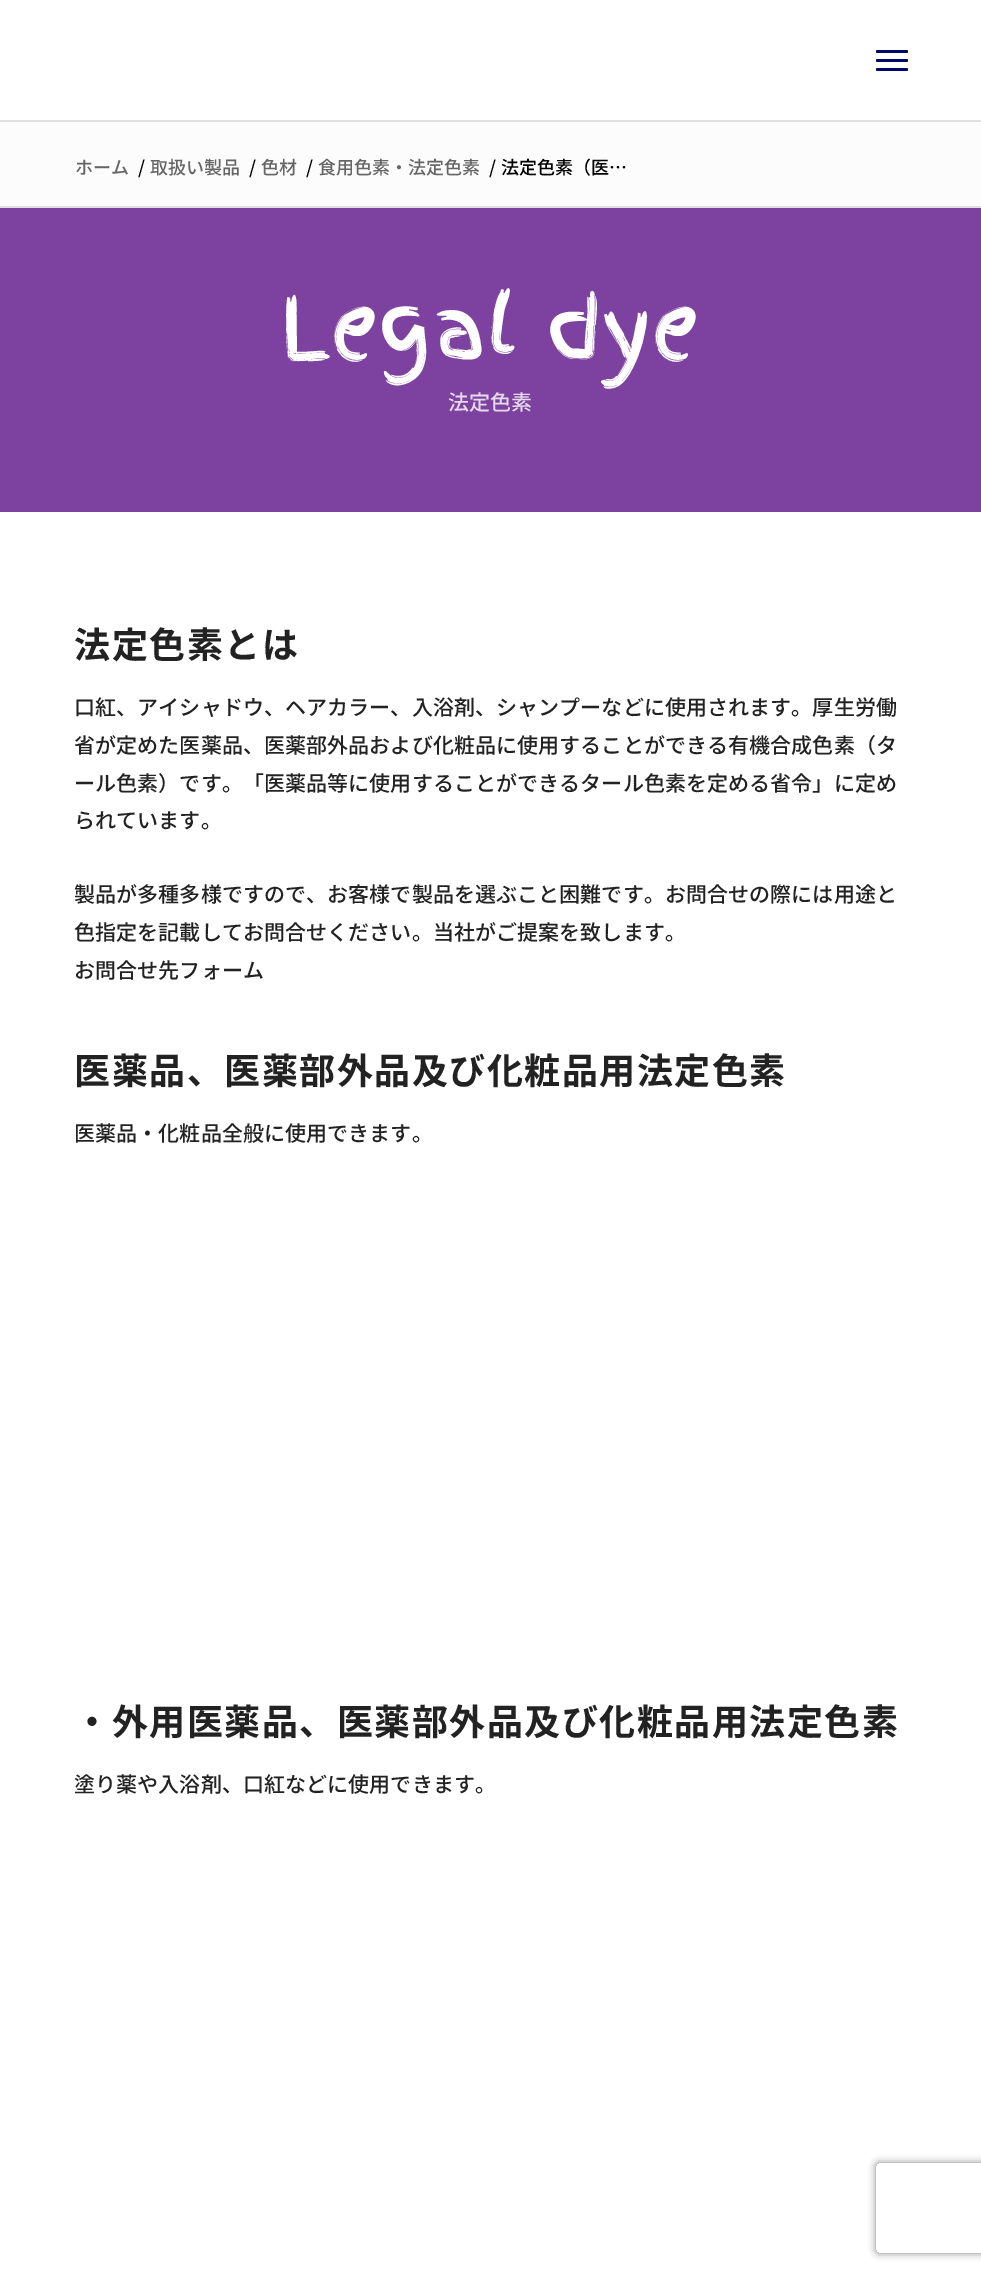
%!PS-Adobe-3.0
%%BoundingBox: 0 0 981 2273
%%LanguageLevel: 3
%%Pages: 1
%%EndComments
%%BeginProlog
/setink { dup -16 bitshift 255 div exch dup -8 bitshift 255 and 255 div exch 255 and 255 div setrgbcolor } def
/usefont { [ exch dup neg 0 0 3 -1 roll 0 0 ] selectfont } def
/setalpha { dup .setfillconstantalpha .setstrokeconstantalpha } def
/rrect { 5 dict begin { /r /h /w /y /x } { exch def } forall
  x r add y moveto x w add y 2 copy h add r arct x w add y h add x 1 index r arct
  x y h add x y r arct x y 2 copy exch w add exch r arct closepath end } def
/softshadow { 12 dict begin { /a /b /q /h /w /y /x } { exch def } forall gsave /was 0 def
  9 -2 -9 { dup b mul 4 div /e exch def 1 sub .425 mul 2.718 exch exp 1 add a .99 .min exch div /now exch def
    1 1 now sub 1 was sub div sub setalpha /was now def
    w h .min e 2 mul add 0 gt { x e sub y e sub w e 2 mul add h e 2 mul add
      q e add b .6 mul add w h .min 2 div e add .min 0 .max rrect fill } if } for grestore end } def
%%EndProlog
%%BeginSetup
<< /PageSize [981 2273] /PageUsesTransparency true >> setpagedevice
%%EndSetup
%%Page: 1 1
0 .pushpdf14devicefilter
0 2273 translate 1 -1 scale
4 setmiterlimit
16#FFFFFF setink
0 0 981 2273 rectfill
16#E1E1E1 setink
0 120 981 2 rectfill
16#000766 setink
876 59 32 3 1.5 rrect fill
876 50 32 3 1.5 rrect fill
876 68 32 3 1.5 rrect fill
16#FCFCFC setink
0 122 981 84 rectfill
16#E1E1E1 setink
0 206 981 2 rectfill
/NotoSansJP-Medium 18 usefont
16#666666 setink
75 174 moveto (ホーム) show
16#000000 setink
138 174 moveto (/) show
16#666666 setink
150 174 moveto (取扱い製品) show
16#000000 setink
249 174 moveto (/) show
16#666666 setink
261 174 moveto (色材) show
16#000000 setink
306 174 moveto (/) show
16#666666 setink
318 174 moveto (食用色素・法定色素) show
16#000000 setink
489 174 moveto (/) show
501 174 moveto (法定色素（医…) show
16#7D41A0 setink
0 208 981 304 rectfill
/FingerPaint-Regular 84 usefont
16#FFFFFF setink
281 357 moveto (Legal dye) show
/NotoSansJP-Medium 21 usefont
16#E5D9EC setink
448 410 moveto 0.1 0 (法定色素) ashow
/NotoSansJP-Bold 36 usefont
16#222222 setink
74 658 moveto 1.5 0 (法定色素とは) ashow
/NotoSansJP-Medium 21 usefont
74 715 moveto 0.1 0 (口紅、アイシャドウ、ヘアカラー、入浴剤、シャンプーなどに使用されます。厚生労働) ashow
74 753 moveto 0.1 0 (省が定めた医薬品、医薬部外品および化粧品に使用することができる有機合成色素（タ) ashow
74 791 moveto 0.1 0 (ール色素）です。「医薬品等に使用することができるタール色素を定める省令」に定め) ashow
74 828 moveto 0.1 0 (られています。) ashow
74 902 moveto 0.1 0 (製品が多種多様ですので、お客様で製品を選ぶこと困難です。お問合せの際には用途と) ashow
74 940 moveto 0.1 0 (色指定を記載してお問合せください。当社がご提案を致します。) ashow
74 978 moveto 0.1 0 (お問合せ先フォーム) ashow
/NotoSansJP-Bold 36 usefont
74 1084 moveto 1.5 0 (医薬品、医薬部外品及び化粧品用法定色素) ashow
/NotoSansJP-Medium 21 usefont
74 1141 moveto 0.1 0 (医薬品・化粧品全般に使用できます。) ashow
/NotoSansJP-Bold 36 usefont
74 1735 moveto 1.5 0 (・外用医薬品、医薬部外品及び化粧品用法定色素) ashow
/NotoSansJP-Medium 21 usefont
74 1792 moveto 0.1 0 (塗り薬や入浴剤、口紅などに使用できます。) ashow
gsave
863 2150 moveto 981 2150 lineto 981 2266 lineto 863 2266 lineto closepath 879 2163 moveto 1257 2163 lineto 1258.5 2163 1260 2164.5 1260 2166 curveto 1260 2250 lineto 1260 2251.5 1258.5 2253 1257 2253 curveto 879 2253 lineto 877.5 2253 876 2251.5 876 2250 curveto 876 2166 lineto 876 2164.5 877.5 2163 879 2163 curveto closepath eoclip newpath
16#808080 setink
876 2163 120 90 3 4 1 softshadow
grestore
.poppdf14devicefilter showpage
%%EOF
